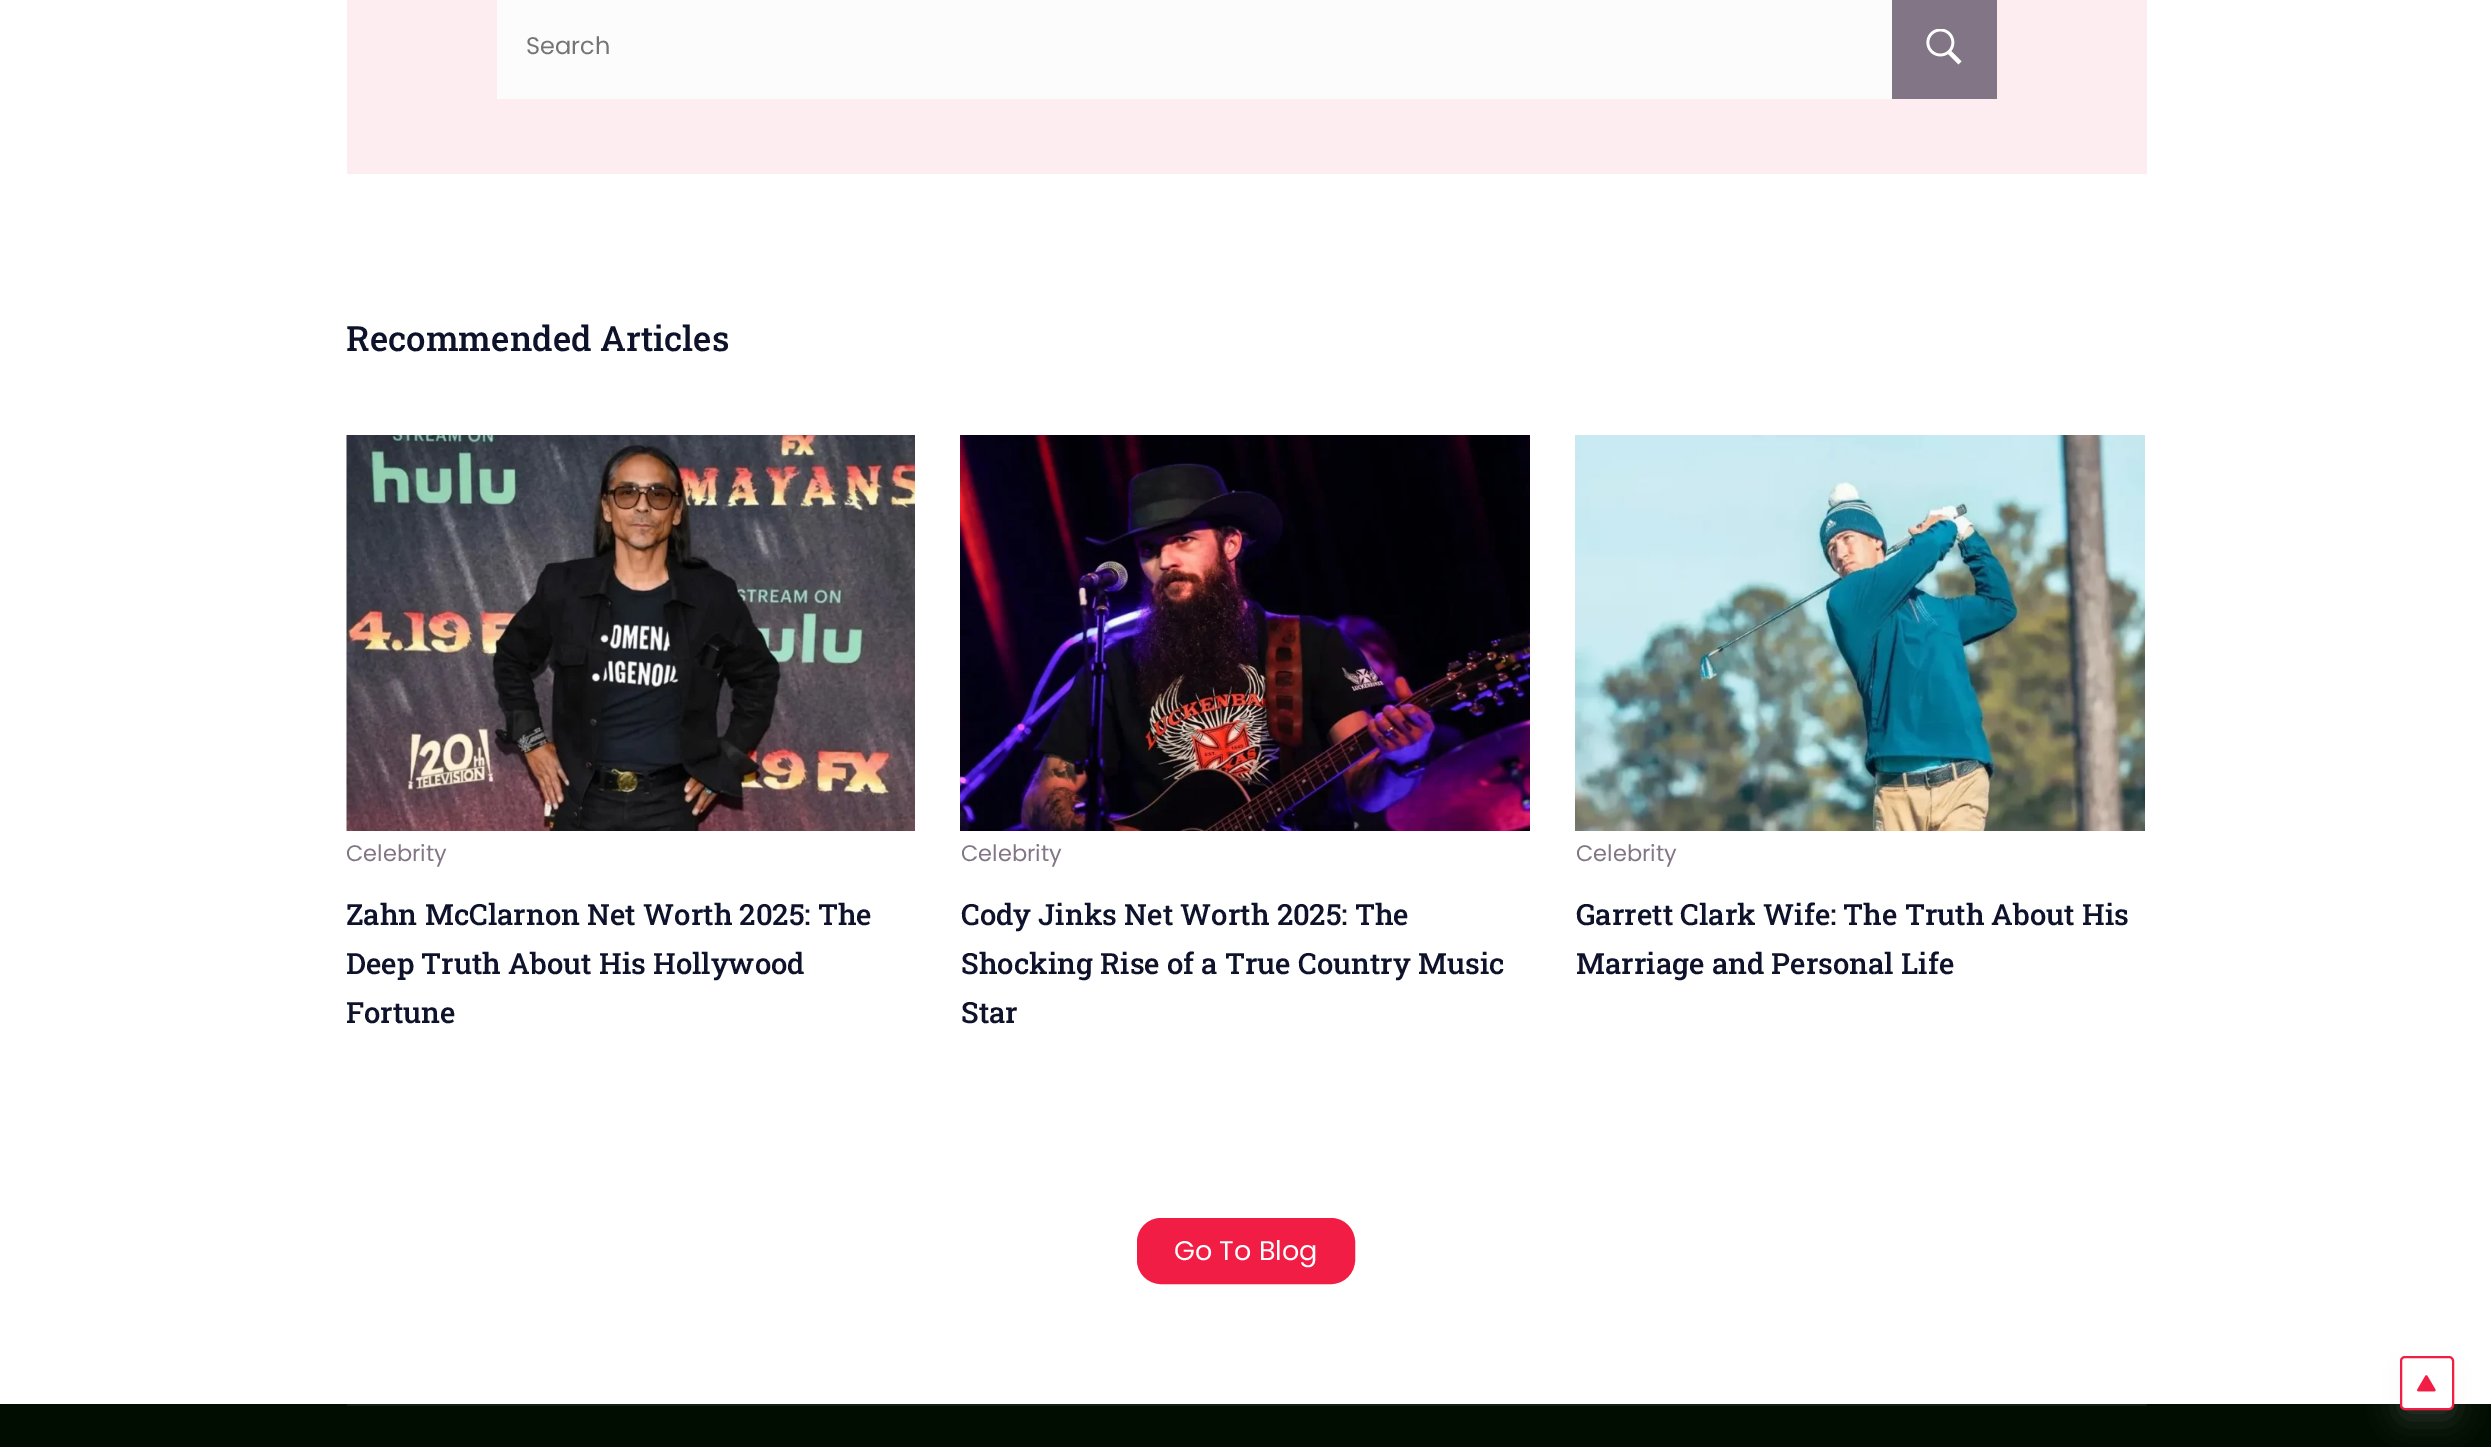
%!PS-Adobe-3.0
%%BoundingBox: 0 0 2491 1447
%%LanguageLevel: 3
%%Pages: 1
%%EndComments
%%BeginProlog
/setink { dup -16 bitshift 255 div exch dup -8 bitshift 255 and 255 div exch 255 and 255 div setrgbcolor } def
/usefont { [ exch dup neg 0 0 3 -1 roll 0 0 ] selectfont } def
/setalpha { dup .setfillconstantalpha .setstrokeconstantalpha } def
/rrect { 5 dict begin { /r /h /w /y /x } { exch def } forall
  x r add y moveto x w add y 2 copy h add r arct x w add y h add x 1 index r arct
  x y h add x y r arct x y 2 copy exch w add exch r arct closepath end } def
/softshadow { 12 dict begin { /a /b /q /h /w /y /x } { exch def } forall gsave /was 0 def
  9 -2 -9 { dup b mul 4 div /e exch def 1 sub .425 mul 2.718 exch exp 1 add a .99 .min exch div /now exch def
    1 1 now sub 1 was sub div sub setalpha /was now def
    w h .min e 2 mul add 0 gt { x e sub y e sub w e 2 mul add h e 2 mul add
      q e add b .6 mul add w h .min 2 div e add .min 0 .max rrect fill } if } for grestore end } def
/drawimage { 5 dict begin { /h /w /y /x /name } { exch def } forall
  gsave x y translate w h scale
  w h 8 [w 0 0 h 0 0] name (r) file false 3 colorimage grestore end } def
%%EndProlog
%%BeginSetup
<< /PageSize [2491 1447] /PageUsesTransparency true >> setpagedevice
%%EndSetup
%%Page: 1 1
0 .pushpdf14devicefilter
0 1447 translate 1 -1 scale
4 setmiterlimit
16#FFFFFF setink
0 0 2491 1447 rectfill
16#FEEDF0 setink
347 0 1800 174 rectfill
16#FCFCFC setink
497 0 1395 99 rectfill
/Poppins-Regular 24 usefont
16#757575 setink
526 54 moveto (Search) show
16#827586 setink
1892 0 105 99 rectfill
(img1.raw) 1926 29 36 36 drawimage
/RobotoSlab-Medium 34.75 usefont
16#0E132B setink
346 351 moveto (Recommended Articles) show
(img2.raw) 346 435 569 396 drawimage
/Poppins-Regular 22.5 usefont
16#827586 setink
346 861 moveto (Celebrity) show
/RobotoSlab-Medium 29.3 usefont
16#0E132B setink
[
    [(Zahn McClarnon Net Worth 2025: The) 346 925]
    [(Deep Truth About His Hollywood) 346 974]
    [(Fortune) 346 1023]
] { aload pop moveto show } forall
(img3.raw) 960 435 570 396 drawimage
/Poppins-Regular 22.5 usefont
16#827586 setink
961 861 moveto (Celebrity) show
/RobotoSlab-Medium 29.3 usefont
16#0E132B setink
[
    [(Cody Jinks Net Worth 2025: The) 961 925]
    [(Shocking Rise of a True Country Music) 961 974]
    [(Star) 961 1023]
] { aload pop moveto show } forall
(img4.raw) 1575 435 570 396 drawimage
/Poppins-Regular 22.5 usefont
16#827586 setink
1576 861 moveto (Celebrity) show
/RobotoSlab-Medium 29.3 usefont
16#0E132B setink
1576 925 moveto (Garrett Clark Wife: The Truth About His) show
1576 974 moveto (Marriage and Personal Life) show
16#F21D44 setink
1138 1219 216 64 23 rrect gsave fill grestore
2 setlinewidth
stroke
/Poppins-Regular 27 usefont
16#FFFFFF setink
1174 1260 moveto (Go To Blog) show
16#010D00 setink
0 1404 2491 43 rectfill
16#152014 setink
347 1404 1800 2 rectfill
16#D2D5DA setink
2400 1364 54 54 5 15 0.2 softshadow
16#FFFFFF setink
2401 1357 52 52 4 rrect gsave fill grestore
16#F21D44 setink
stroke
(img5.raw) 2417 1375 19 17 drawimage
.poppdf14devicefilter showpage
%%EOF
